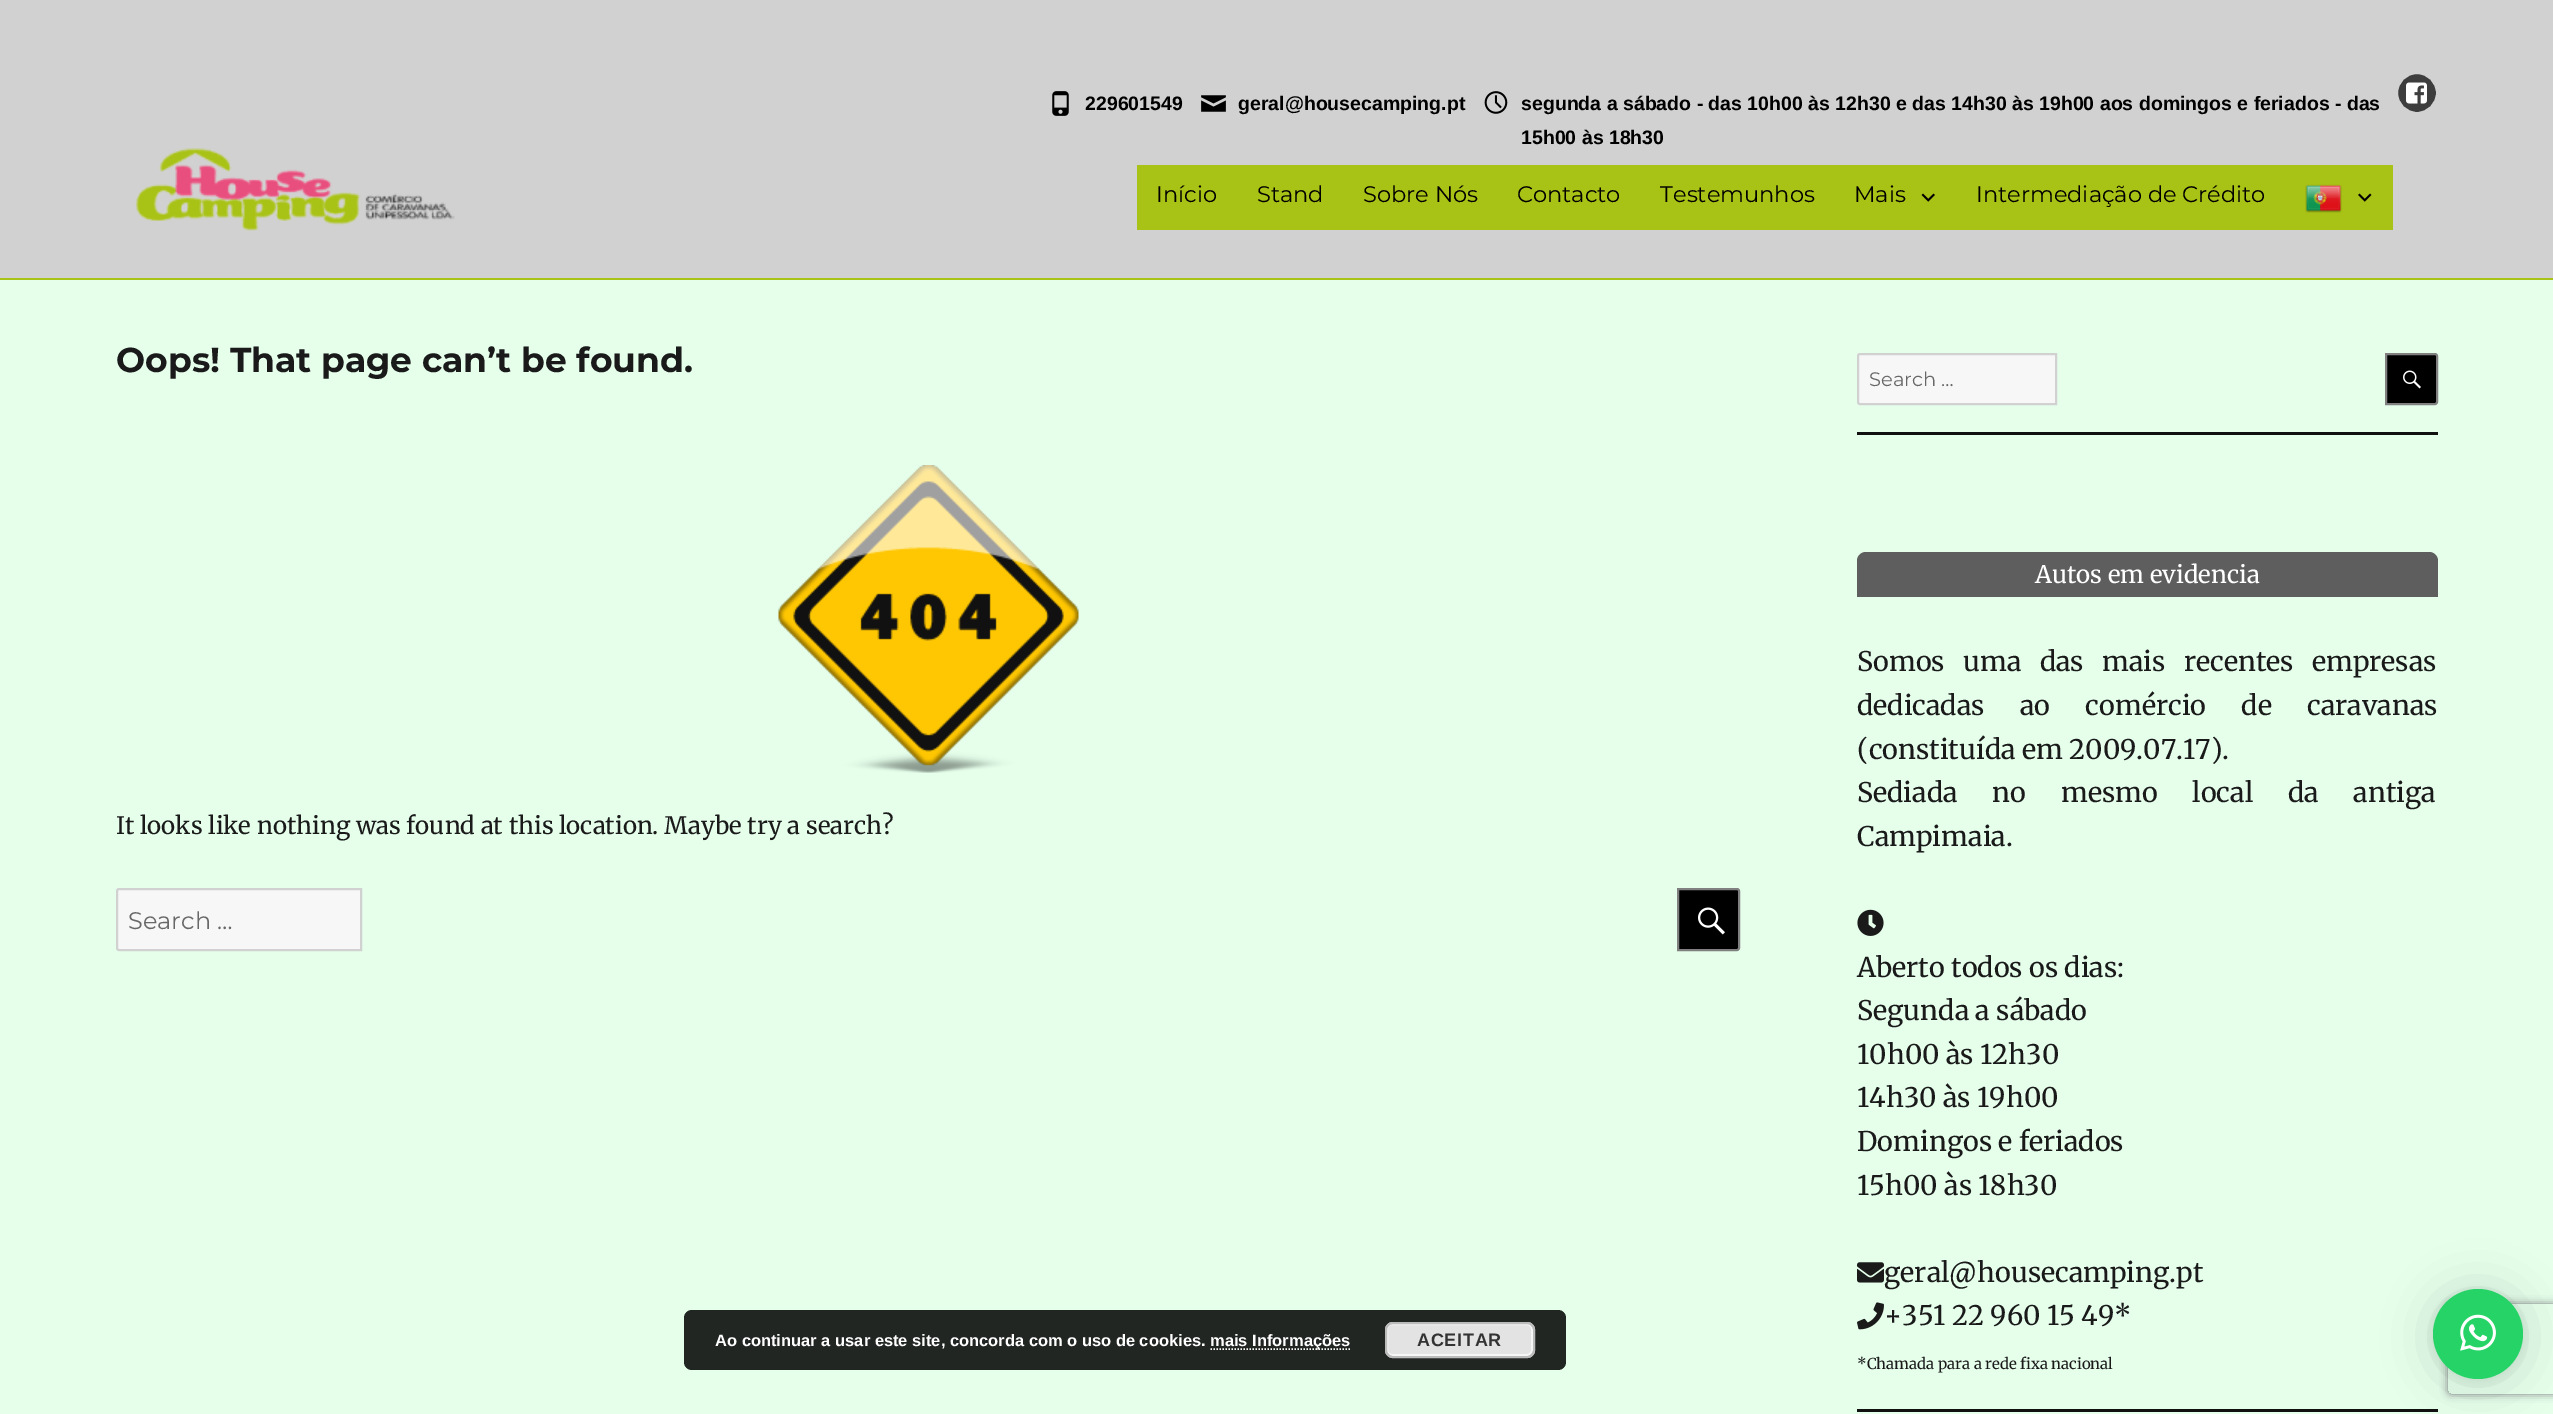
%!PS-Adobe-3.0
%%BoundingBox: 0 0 2553 1414
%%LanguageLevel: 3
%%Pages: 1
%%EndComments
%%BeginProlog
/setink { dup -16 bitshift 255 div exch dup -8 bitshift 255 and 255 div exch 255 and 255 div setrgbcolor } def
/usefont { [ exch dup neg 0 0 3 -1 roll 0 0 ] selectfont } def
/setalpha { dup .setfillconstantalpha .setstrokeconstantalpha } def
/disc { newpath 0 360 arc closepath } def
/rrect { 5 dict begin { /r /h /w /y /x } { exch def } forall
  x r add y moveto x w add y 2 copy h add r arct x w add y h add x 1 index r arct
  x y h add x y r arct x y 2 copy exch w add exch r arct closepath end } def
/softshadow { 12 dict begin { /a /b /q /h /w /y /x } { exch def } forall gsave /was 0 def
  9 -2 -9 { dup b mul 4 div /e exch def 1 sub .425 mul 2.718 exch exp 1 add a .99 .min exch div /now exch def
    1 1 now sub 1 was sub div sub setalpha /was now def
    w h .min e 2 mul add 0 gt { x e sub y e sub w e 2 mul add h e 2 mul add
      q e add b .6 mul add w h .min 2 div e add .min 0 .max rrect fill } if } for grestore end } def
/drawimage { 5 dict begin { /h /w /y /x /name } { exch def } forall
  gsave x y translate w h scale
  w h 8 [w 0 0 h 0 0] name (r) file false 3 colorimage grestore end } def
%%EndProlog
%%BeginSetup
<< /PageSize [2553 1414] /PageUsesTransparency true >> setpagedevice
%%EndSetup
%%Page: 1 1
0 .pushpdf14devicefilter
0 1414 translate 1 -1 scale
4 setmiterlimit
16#E5FFEB setink
0 0 2553 1414 rectfill
16#D1D1D1 setink
0 0 2553 278 rectfill
16#A9C216 setink
0 278 2553 2 rectfill
(img1.raw) 1052 91 17 25 drawimage
/LiberationSans-Bold 19.5 usefont
16#000000 setink
1085 110 moveto (229601549) show
(img2.raw) 1201 95 25 17 drawimage
1238 110 moveto (geral@housecamping.pt) show
(img3.raw) 1484 91 24 23 drawimage
1521 110 moveto (segunda a sábado - das 10h00 às 12h30 e das 14h30 às 19h00 aos domingos e feriados - das) show
1521 144 moveto (15h00 às 18h30) show
16#3D3D3D setink
2417 93 20 disc gsave fill grestore
16#D1D1D1 setink
2 setlinewidth
stroke
(img4.raw) 2406 82 21 22 drawimage
(img5.raw) 135 148 320 83 drawimage
16#A9C216 setink
1137 165 1256 65 rectfill
/Montserrat-Regular 22.5 usefont
16#000000 setink
[
    [(Início) 1156 202]
    [(Stand) 1257 202]
    [(Sobre Nós) 1363 202]
    [(Contacto) 1517 202]
    [(Testemunhos) 1660 202]
    [(Mais) 1854 202]
] { aload pop moveto show } forall
(img6.raw) 1921 193 14 9 drawimage
1976 202 moveto (Intermediação de Crédito) show
(img7.raw) 2305 184 37 29 drawimage
(img8.raw) 2358 193 14 9 drawimage
/Montserrat-Bold 34.5 usefont
16#1A1A1A setink
116 372 moveto (Oops! That page can’t be found.) show
(img9.raw) 778 465 301 308 drawimage
/Merriweather-Regular 24 usefont
116 834 moveto (It looks like nothing was found at this location. Maybe try a search?) show
16#F7F7F7 setink
119 889 moveto 361 889 lineto 361 950 lineto 119 950 lineto 118 950 117 949 117 948 curveto 117 891 lineto 117 890 118 889 119 889 curveto closepath gsave fill grestore
16#D1D1D1 setink
stroke
/Montserrat-Regular 24 usefont
16#686868 setink
128 929 moveto (Search …) show
16#000000 setink
1678 889 moveto 1737 889 lineto 1738 889 1739 890 1739 891 curveto 1739 948 lineto 1739 949 1738 950 1737 950 curveto 1678 950 lineto closepath gsave fill grestore
16#808080 setink
stroke
(img10.raw) 1698 907 27 28 drawimage
16#111111 setink
1857 432 581 3 rectfill
16#F7F7F7 setink
1860 354 moveto 2056 354 lineto 2056 404 lineto 1860 404 lineto 1859 404 1858 403 1858 402 curveto 1858 356 lineto 1858 355 1859 354 1860 354 curveto closepath gsave fill grestore
16#D1D1D1 setink
stroke
/Montserrat-Regular 19.5 usefont
16#686868 setink
1869 386 moveto (Search …) show
16#000000 setink
2386 354 moveto 2435 354 lineto 2436 354 2437 355 2437 356 curveto 2437 402 lineto 2437 403 2436 404 2435 404 curveto 2386 404 lineto closepath gsave fill grestore
16#808080 setink
stroke
(img11.raw) 2403 370 18 19 drawimage
16#5E5E5E setink
1866 552 moveto 2429 552 lineto 2434 552 2438 556 2438 561 curveto 2438 597 lineto 1857 597 lineto 1857 561 lineto 1857 556 1861 552 1866 552 curveto closepath fill
/Merriweather-Regular 24 usefont
16#FFFFFF setink
2035 583 moveto (Autos em evidencia) show
16#111111 setink
1857 1409 581 3 rectfill
/Merriweather-Regular 27 usefont
16#1A1A1A setink
1857 671 moveto 12 0 32 (Somos uma das mais recentes empresas) widthshow
1857 715 moveto 29 0 32 (dedicadas ao comércio de caravanas) widthshow
1857 759 moveto (\(constituída em 2009.07.17\).) show
1857 802 moveto 28.5 0 32 (Sediada no mesmo local da antiga) widthshow
1857 846 moveto (Campimaia.) show
(img12.raw) 1857 909 27 27 drawimage
[
    [(Aberto todos os dias:) 1857 977]
    [(Segunda a sábado) 1857 1020]
    [(10h00 às 12h30) 1857 1064]
    [(14h30 às 19h00) 1857 1107]
    [(Domingos e feriados) 1857 1151]
    [(15h00 às 18h30) 1857 1195]
] { aload pop moveto show } forall
(img13.raw) 1857 1262 27 21 drawimage
1884 1282 moveto (geral@housecamping.pt) show
(img14.raw) 1857 1302 27 28 drawimage
1884 1325 moveto (+351 22 960 15 49*) show
/Merriweather-Regular 15 usefont
1857 1369 moveto (*Chamada para a rede fixa nacional) show
gsave
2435 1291 moveto 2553 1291 lineto 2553 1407 lineto 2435 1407 lineto closepath 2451 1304 moveto 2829 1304 lineto 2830.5 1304 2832 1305.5 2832 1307 curveto 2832 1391 lineto 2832 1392.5 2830.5 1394 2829 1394 curveto 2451 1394 lineto 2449.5 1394 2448 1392.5 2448 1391 curveto 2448 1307 lineto 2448 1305.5 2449.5 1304 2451 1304 curveto closepath eoclip newpath
16#808080 setink
2448 1304 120 90 3 4 1 softshadow
grestore
16#222623 setink
684 1310 882 60 8 rrect fill
/LiberationSans-Bold 16.5 usefont
16#FFFFFF setink
715 1346 moveto (Ao continuar a usar este site, concorda com o uso de cookies.) show
1.5 setlinewidth
[1.5 1.5] 0 setdash
1210.5 1349 moveto 1350 1349 lineto stroke
1210 1346 moveto (mais Informações) show
16#E3E3E3 setink
1385 1322 150 36 8 rrect fill
16#F6F6F6 setink
2 setlinewidth
[] 0 setdash
1387 1324 145 31 5 rrect stroke
16#BBBBBB setink
1386 1323 148 34 7 rrect stroke
/LiberationSans-Bold 18 usefont
16#333333 setink
1417 1346 moveto 0.75 0 (ACEITAR) ashow
16#000000 setink
2433 1292 90 90 45 24 0.16 softshadow
2433 1290 90 90 45 4.5 0.06 softshadow
16#25D366 setink
2478 1334 45 disc fill
(img15.raw) 2460 1314 36 37 drawimage
.poppdf14devicefilter showpage
%%EOF
